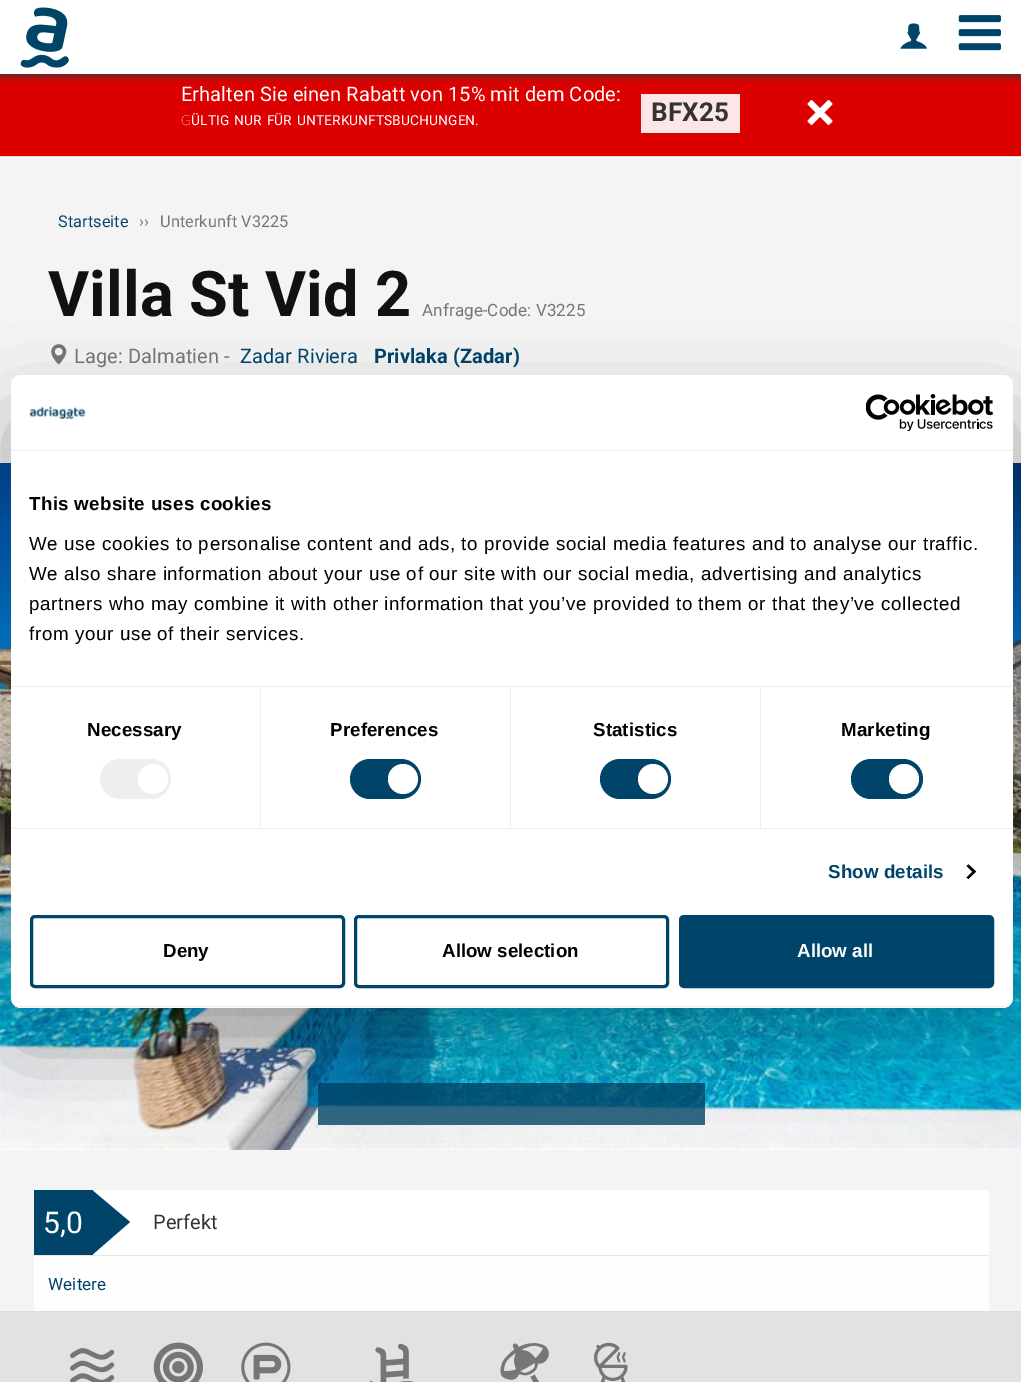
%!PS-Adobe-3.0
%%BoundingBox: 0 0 1021 1382
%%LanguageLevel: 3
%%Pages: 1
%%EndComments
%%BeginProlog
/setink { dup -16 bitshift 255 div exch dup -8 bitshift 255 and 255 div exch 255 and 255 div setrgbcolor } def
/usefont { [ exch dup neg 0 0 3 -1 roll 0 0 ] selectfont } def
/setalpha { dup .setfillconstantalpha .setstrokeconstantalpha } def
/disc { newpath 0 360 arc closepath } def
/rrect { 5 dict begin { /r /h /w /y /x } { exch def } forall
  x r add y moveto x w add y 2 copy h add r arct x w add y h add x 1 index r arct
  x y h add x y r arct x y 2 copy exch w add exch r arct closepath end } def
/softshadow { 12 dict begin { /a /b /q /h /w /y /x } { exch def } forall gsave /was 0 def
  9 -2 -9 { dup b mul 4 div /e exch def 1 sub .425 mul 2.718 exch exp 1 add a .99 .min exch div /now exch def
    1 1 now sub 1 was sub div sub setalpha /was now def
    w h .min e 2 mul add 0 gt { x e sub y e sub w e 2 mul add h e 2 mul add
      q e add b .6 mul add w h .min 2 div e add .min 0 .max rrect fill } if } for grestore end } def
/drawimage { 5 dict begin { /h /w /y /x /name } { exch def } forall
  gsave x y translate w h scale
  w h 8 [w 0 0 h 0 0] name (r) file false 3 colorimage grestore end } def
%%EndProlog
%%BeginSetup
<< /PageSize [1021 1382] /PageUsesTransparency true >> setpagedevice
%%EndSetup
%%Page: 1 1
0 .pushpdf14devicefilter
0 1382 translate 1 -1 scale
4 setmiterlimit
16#F4F4F4 setink
0 0 1021 1382 rectfill
[
    [0 157 1021 1 16#FFFFFF]
    [0 156 1021 1 16#DDDDDD]
    [0 74 1021 82 16#DD0000]
] { aload pop setink rectfill } forall
16#333333 setink
-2 -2 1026 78 0 4 1 softshadow
16#FFFFFF setink
0 0 1021 74 rectfill
(img1.raw) 20 7 49 61 drawimage
(img2.raw) 900 23 27 26 drawimage
(img3.raw) 958 15 43 36 drawimage
/Roboto-Regular 20 usefont
181 101 moveto 0.1 0 (Erhalten Sie einen Rabatt von 15% mit dem Code:) ashow
/NotoSans-Thin 13.75 usefont
181 125 moveto 0.1 0 (G) ashow
/Roboto-Regular 13.75 usefont
191 125 moveto 1.5 0 32 0.1 0 (ÜLTIG NUR FÜR UNTERKUNFTSBUCHUNGEN.) awidthshow
16#FCE6E6 setink
641 94 99 39 rectfill
/Roboto-Bold 26 usefont
16#333333 setink
651 121 moveto 0.1 0 (BFX25) ashow
(img4.raw) 807 100 26 25 drawimage
/Roboto-Regular 16.25 usefont
16#004569 setink
58 227 moveto 0.1 0 (Startseite) ashow
16#767676 setink
139 227 moveto 0.1 0 (››) ashow
160 227 moveto 0.1 0 (Unterkunft V3225) ashow
/Roboto-Bold 63 usefont
16#111111 setink
48 316 moveto 0.1 0 (Villa St Vid 2) ashow
/Roboto-Regular 17 usefont
16#767676 setink
422 316 moveto 0.1 0 (Anfrage-Code: V3225) ashow
(img5.raw) 51 344 16 21 drawimage
/Roboto-Regular 20 usefont
74 363 moveto 0.1 0 (Lage: Dalmatien -) ashow
16#004569 setink
240 363 moveto 0.1 0 (Zadar Riviera) ashow
/Roboto-Bold 20 usefont
374 363 moveto 0.1 0 (Privlaka \(Zadar\)) ashow
(img6.raw) 0 463 1021 687 drawimage
0.8 setalpha
[
    [318 1083 387 42 16#004569]
] { aload pop setink rectfill } forall
1 setalpha
[
    [93 1190 896 65 16#FFFFFF]
    [34 1255 955 1 16#E7E7E7]
    [34 1190 59 65 16#004569]
] { aload pop setink rectfill } forall
/Roboto-Regular 30 usefont
16#FFFFFF setink
43 1233 moveto 0.1 0 (5,0) ashow
16#004569 setink
92 1255 moveto 92 1190 lineto 130 1222 lineto closepath fill
/Roboto-Regular 20 usefont
16#333333 setink
153 1229 moveto 0.1 0 (Perfekt) ashow
16#FEFEFE setink
34 1256 955 55 rectfill
/Roboto-Regular 17 usefont
16#004569 setink
48 1290 moveto 0.1 0 (Weitere) ashow
16#E2E2E2 setink
0 1312 1021 70 rectfill
16#DDDDDD setink
0 1311 1021 1 rectfill
(img7.raw) 70 1348 45 34 drawimage
(img8.raw) 153 1342 50 40 drawimage
(img9.raw) 241 1342 50 40 drawimage
(img10.raw) 370 1343 44 39 drawimage
(img11.raw) 500 1343 49 39 drawimage
(img12.raw) 594 1342 34 40 drawimage
16#000000 setink
11 415 1002 633 10 42.5 0.3 softshadow
16#FFFFFF setink
11 375 1002 633 10 rrect fill
16#EEEEEE setink
11 450 1002 1 rectfill
(img13.raw) 29 406 57 13 drawimage
(img14.raw) 866 394 127 37 drawimage
11 686 1002 1 rectfill
/LiberationSans-Bold 18.75 usefont
16#000000 setink
29 510 moveto 0.3 0 (This website uses cookies) ashow
/LiberationSans-Regular 18.75 usefont
29 550 moveto 0.62 0 (We use cookies to personalise content and ads, to provide social media features and to analyse our traffic.) ashow
29 580 moveto 0.62 0 (We also share information about your use of our site with our social media, advertising and analytics) ashow
29 610 moveto 0.62 0 (partners who may combine it with other information that you’ve provided to them or that they’ve collected) ashow
29 640 moveto 0.62 0 (from your use of their services.) ashow
16#EEEEEE setink
11 828 1002 1 rectfill
260 688 1 140 rectfill
/LiberationSans-Bold 18.75 usefont
16#000000 setink
87 736 moveto 0.1 0 (Necessary) ashow
16#EEEEEE setink
100 759 71 40 20 rrect fill
16#FFFFFF setink
153 779 15 disc fill
16#EEEEEE setink
510 688 1 140 rectfill
16#000000 setink
330 736 moveto 0.1 0 (Preferences) ashow
16#004569 setink
350 759 71 40 20 rrect fill
16#FFFFFF setink
403 779 15 disc fill
16#EEEEEE setink
760 688 1 140 rectfill
16#000000 setink
593 736 moveto 0.1 0 (Statistics) ashow
16#004569 setink
600 759 71 40 20 rrect fill
16#FFFFFF setink
653 779 15 disc fill
16#000000 setink
841 736 moveto 0.1 0 (Marketing) ashow
16#004569 setink
851 759 72 40 20 rrect fill
16#FFFFFF setink
904 779 15 disc fill
16#004569 setink
828 878 moveto 0.1 0 (Show details) ashow
16#000000 setink
968.5 864.5 moveto 976 871.5 lineto 974 873.5 lineto 966.5 866 lineto closepath fill
974 870 moveto 976 871.5 lineto 968.5 879 lineto 966.5 877.5 lineto closepath fill
gsave
11 375 1002 633 10 rrect clip newpath
16#EEEEEE setink
11 1006 1002 1 rectfill
grestore
16#004569 setink
3 setlinewidth
31.5 916.5 312 70 3.5 rrect stroke
16#000000 setink
163 957 moveto (Deny) show
16#004569 setink
355.5 916.5 312 70 3.5 rrect stroke
16#000000 setink
442 957 moveto (Allow selection) show
16#004569 setink
680.5 916.5 312 70 3.5 rrect gsave fill grestore
stroke
16#FFFFFF setink
797 957 moveto (Allow all) show
.poppdf14devicefilter showpage
%%EOF
